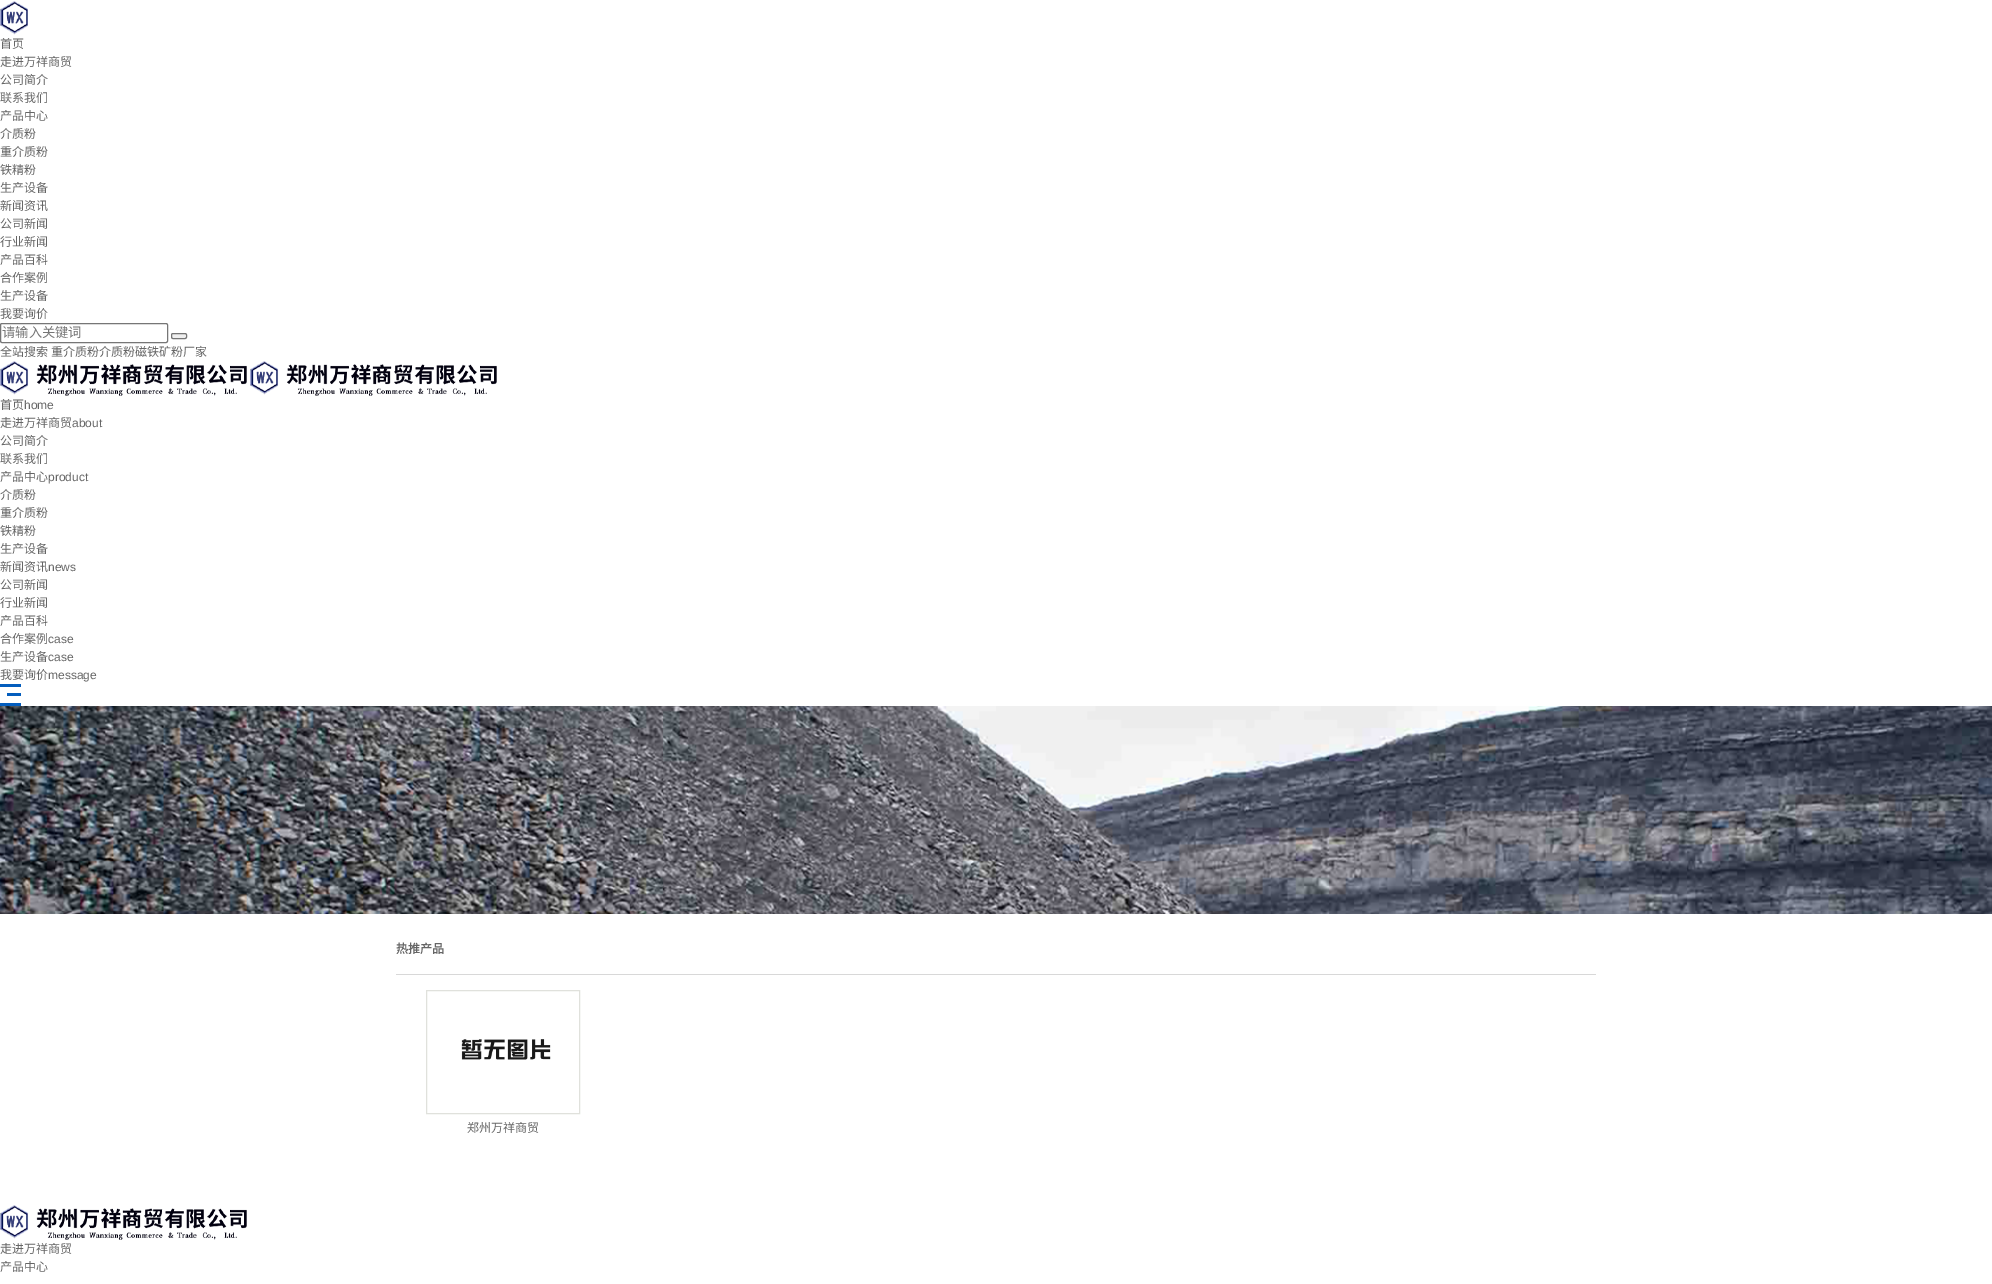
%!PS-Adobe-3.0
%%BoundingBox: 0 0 1992 1284
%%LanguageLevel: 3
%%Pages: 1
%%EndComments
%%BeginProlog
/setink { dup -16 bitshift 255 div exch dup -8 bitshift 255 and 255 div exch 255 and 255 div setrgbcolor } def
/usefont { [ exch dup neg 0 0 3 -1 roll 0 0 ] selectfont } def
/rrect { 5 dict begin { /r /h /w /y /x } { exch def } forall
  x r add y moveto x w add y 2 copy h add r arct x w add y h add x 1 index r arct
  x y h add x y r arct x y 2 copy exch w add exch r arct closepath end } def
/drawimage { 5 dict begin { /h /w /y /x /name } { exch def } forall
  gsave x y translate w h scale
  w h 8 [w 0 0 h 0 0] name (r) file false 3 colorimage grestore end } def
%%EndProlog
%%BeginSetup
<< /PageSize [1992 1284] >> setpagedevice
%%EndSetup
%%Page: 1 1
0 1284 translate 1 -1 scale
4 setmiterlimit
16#FFFFFF setink
0 0 1992 1284 rectfill
(img1.raw) 0 1 28 34 drawimage
/NotoSansCJKSC-Regular 12 usefont
16#666666 setink
[
    [(首页) 0 48]
    [(走进万祥商贸) 0 66]
    [(公司简介) 0 84]
    [(联系我们) 0 102]
    [(产品中心) 0 120]
    [(介质粉) 0 138]
    [(重介质粉) 0 156]
    [(铁精粉) 0 174]
    [(生产设备) 0 192]
    [(新闻资讯) 0 210]
    [(公司新闻) 0 228]
    [(行业新闻) 0 246]
    [(产品百科) 0 264]
    [(合作案例) 0 282]
    [(生产设备) 0 300]
    [(我要询价) 0 318]
] { aload pop moveto show } forall
16#767676 setink
0.5 323.5 167 19 1.5 rrect stroke
/NotoSansCJKSC-Regular 13.25 usefont
16#757575 setink
2 337 moveto (请输入关键词) show
16#EFEFEF setink
171.5 333.5 15 5 1.5 rrect gsave fill grestore
16#767676 setink
stroke
/NotoSansCJKSC-Regular 12 usefont
16#666666 setink
0 356 moveto (全站搜索) show
51 356 moveto (重介质粉介质粉磁铁矿粉厂家) show
(img2.raw) 0 361 247 35 drawimage
(img2.raw) 250 361 247 35 drawimage
0 409 moveto (首页) show
/LiberationSans-Regular 12 usefont
24 409 moveto (home) show
/NotoSansCJKSC-Regular 12 usefont
0 427 moveto (走进万祥商贸) show
/LiberationSans-Regular 12 usefont
72 427 moveto (about) show
/NotoSansCJKSC-Regular 12 usefont
[
    [(公司简介) 0 445]
    [(联系我们) 0 463]
    [(产品中心) 0 481]
] { aload pop moveto show } forall
/LiberationSans-Regular 12 usefont
48 481 moveto (product) show
/NotoSansCJKSC-Regular 12 usefont
[
    [(介质粉) 0 499]
    [(重介质粉) 0 517]
    [(铁精粉) 0 535]
    [(生产设备) 0 553]
    [(新闻资讯) 0 571]
] { aload pop moveto show } forall
/LiberationSans-Regular 12 usefont
48 571 moveto (news) show
/NotoSansCJKSC-Regular 12 usefont
[
    [(公司新闻) 0 589]
    [(行业新闻) 0 607]
    [(产品百科) 0 625]
    [(合作案例) 0 643]
] { aload pop moveto show } forall
/LiberationSans-Regular 12 usefont
48 643 moveto (case) show
/NotoSansCJKSC-Regular 12 usefont
0 661 moveto (生产设备) show
/LiberationSans-Regular 12 usefont
48 661 moveto (case) show
/NotoSansCJKSC-Regular 12 usefont
0 679 moveto (我要询价) show
/LiberationSans-Regular 12 usefont
48 679 moveto (message) show
(img3.raw) 0 684 21 22 drawimage
(img4.raw) 0 706 1992 208 drawimage
16#D8D8D8 setink
396 974 1200 1 rectfill
/NotoSansCJKSC-Bold 12 usefont
16#666666 setink
396 953 moveto (热推产品) show
16#E0E1DC setink
426.5 990.5 153 123 rectstroke
(img5.raw) 461 1039 90 21 drawimage
/NotoSansCJKSC-Regular 12 usefont
16#666666 setink
467 1132 moveto (郑州万祥商贸) show
(img2.raw) 0 1205 247 35 drawimage
0 1253 moveto (走进万祥商贸) show
0 1271 moveto (产品中心) show
showpage
%%EOF
